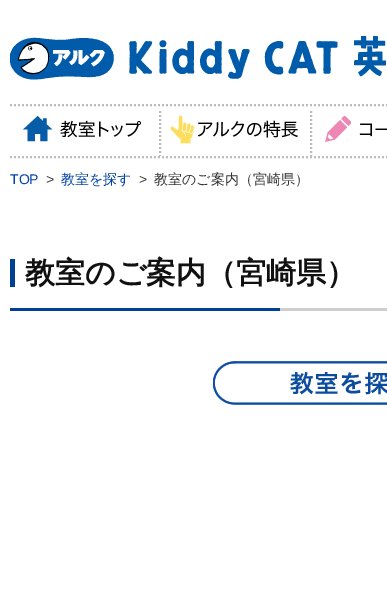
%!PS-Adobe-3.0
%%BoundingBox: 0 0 387 604
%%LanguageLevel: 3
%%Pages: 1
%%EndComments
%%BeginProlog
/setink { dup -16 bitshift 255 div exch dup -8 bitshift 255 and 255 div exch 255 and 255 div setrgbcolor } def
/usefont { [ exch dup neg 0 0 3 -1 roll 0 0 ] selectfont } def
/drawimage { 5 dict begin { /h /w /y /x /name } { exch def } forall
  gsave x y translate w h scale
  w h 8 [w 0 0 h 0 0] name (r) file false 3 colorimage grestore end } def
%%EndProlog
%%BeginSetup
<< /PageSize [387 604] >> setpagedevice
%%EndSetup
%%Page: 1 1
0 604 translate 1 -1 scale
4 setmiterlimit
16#FFFFFF setink
0 0 387 604 rectfill
(img1.raw) 10 36 376 44 drawimage
16#BBBBBB setink
2 setlinewidth
[2 2] 0 setdash
10 105 moveto 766 105 lineto stroke
10 157 moveto 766 157 lineto stroke
160 111 moveto 160 156 lineto stroke
(img2.raw) 23 116 118 26 drawimage
311 111 moveto 311 156 lineto stroke
(img3.raw) 170 115 128 29 drawimage
(img4.raw) 325 116 62 26 drawimage
/LiberationSans-Regular 14 usefont
16#0041A5 setink
10 184 moveto (TOP) show
16#3D3D3D setink
46 184 moveto (>) show
/WenQuanYiZenHei-Medium 14 usefont
16#0041A5 setink
61 184 moveto (教室を探す) show
/LiberationSans-Regular 14 usefont
16#3D3D3D setink
139 184 moveto (>) show
/WenQuanYiZenHei-Medium 14 usefont
16#333333 setink
154 184 moveto (教室のご案内（宮崎県）) show
(img5.raw) 10 308 377 3 drawimage
16#004092 setink
10 259 5 28 rectfill
/WenQuanYiZenHei-Bold 30 usefont
16#111111 setink
25 283 moveto (教室のご案内（宮崎県）) show
(img6.raw) 213 361 174 44 drawimage
showpage
%%EOF
